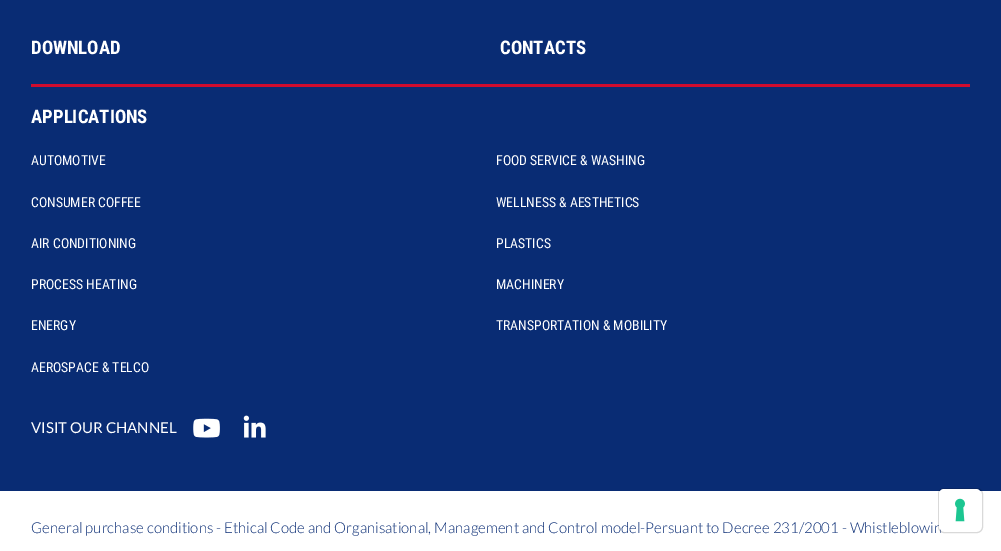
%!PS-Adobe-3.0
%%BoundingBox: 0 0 1001 551
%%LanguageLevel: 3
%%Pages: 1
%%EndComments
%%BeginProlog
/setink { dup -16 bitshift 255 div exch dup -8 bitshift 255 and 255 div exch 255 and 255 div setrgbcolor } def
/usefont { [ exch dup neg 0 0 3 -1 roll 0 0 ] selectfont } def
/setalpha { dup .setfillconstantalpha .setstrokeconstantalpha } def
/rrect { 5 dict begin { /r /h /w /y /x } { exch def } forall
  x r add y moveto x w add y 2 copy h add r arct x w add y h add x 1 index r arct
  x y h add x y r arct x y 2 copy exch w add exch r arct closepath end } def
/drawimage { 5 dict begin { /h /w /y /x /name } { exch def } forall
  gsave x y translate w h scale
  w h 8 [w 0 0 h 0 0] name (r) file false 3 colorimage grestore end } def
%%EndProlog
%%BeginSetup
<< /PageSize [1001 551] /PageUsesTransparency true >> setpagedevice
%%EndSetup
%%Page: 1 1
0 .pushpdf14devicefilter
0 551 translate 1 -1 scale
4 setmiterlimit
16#092C74 setink
0 0 1001 551 rectfill
/RobotoCondensed-Bold 18.75 usefont
16#FFFFFF setink
31 54 moveto (DOWNLOAD) show
500 54 moveto (CONTACTS) show
16#D00C2E setink
31 84 939 3 rectfill
16#FFFFFF setink
31 123 moveto (APPLICATIONS) show
/RobotoCondensed-Regular 13.75 usefont
[
    [(AUTOMOTIVE) 31 165]
    [(FOOD SERVICE & WASHING) 496 165]
    [(CONSUMER COFFEE) 31 207]
    [(WELLNESS & AESTHETICS) 496 207]
    [(AIR CONDITIONING) 31 248]
    [(PLASTICS) 496 248]
    [(PROCESS HEATING) 31 289]
    [(MACHINERY) 496 289]
    [(ENERGY) 31 330]
    [(TRANSPORTATION & MOBILITY) 496 330]
    [(AEROSPACE & TELCO) 31 372]
] { aload pop moveto show } forall
/Lato-Regular 15 usefont
31 433 moveto (VISIT OUR CHANNEL) show
(img1.raw) 193 418 27 20 drawimage
(img2.raw) 243 415 23 23 drawimage
0 491 1001 60 rectfill
/Lato-Light 15 usefont
16#092C74 setink
31 533 moveto (General purchase conditions - Ethical Code and Organisational, Management and Control model-Persuant to Decree 231/2001 - Whistleblowin) show
0.15 setalpha
16#000000 setink
938.5 488.5 44 44 5.5 rrect stroke
1 setalpha
16#FFFFFF setink
939 489 42 42 5 rrect fill
(img3.raw) 955 498 10 24 drawimage
.poppdf14devicefilter showpage
%%EOF
